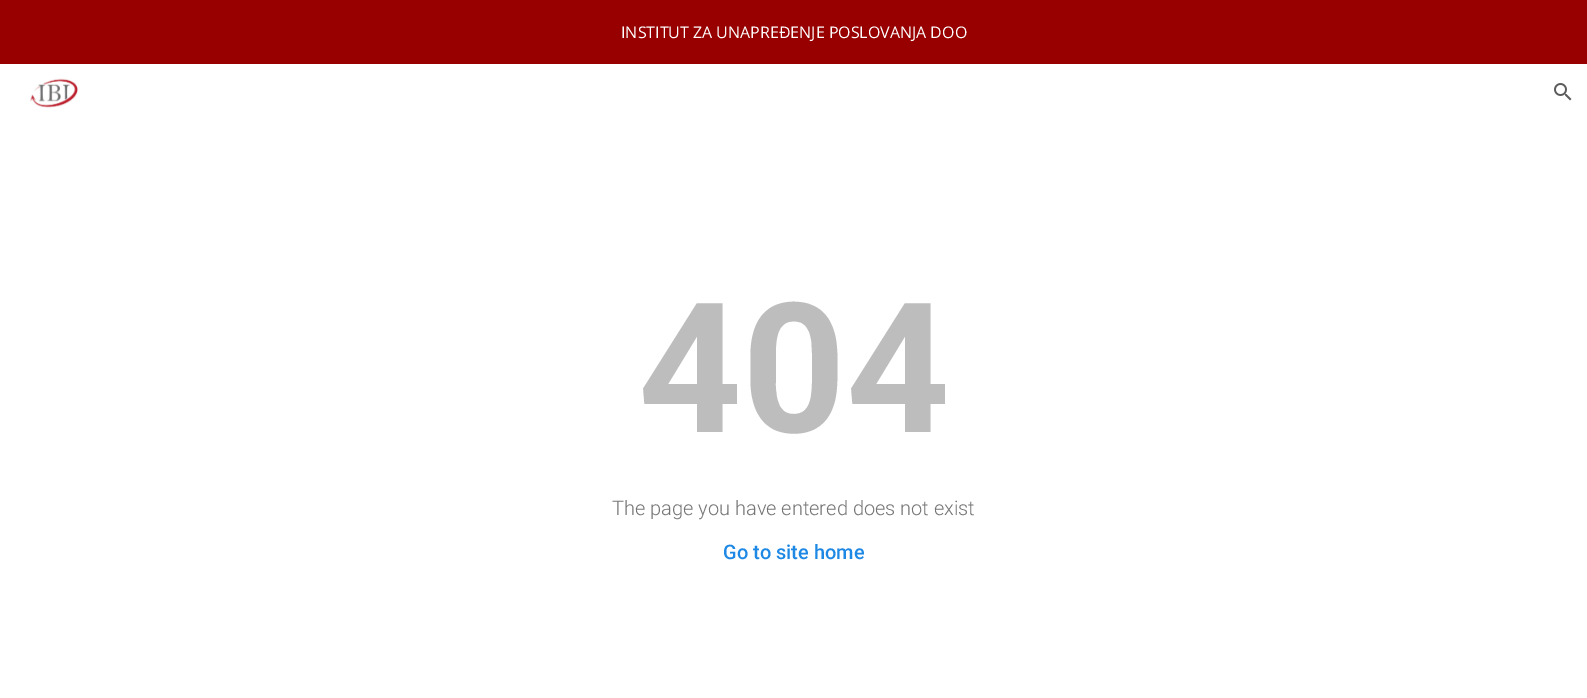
%!PS-Adobe-3.0
%%BoundingBox: 0 0 1587 698
%%LanguageLevel: 3
%%Pages: 1
%%EndComments
%%BeginProlog
/setink { dup -16 bitshift 255 div exch dup -8 bitshift 255 and 255 div exch 255 and 255 div setrgbcolor } def
/usefont { [ exch dup neg 0 0 3 -1 roll 0 0 ] selectfont } def
/drawimage { 5 dict begin { /h /w /y /x /name } { exch def } forall
  gsave x y translate w h scale
  w h 8 [w 0 0 h 0 0] name (r) file false 3 colorimage grestore end } def
%%EndProlog
%%BeginSetup
<< /PageSize [1587 698] >> setpagedevice
%%EndSetup
%%Page: 1 1
0 698 translate 1 -1 scale
4 setmiterlimit
16#FFFFFF setink
0 0 1587 698 rectfill
16#980000 setink
0 0 1587 64 rectfill
/OpenSans-Regular 16 usefont
16#FFFFFF setink
621 38 moveto (INSTITUT ZA UNAPREĐENJE POSLOVANJA DOO) show
(img1.raw) 30 78 49 30 drawimage
(img2.raw) 1554 83 18 18 drawimage
/Roboto-Bold 181 usefont
16#BDBDBD setink
638 432 moveto (404) show
/Roboto-Light 20 usefont
16#757575 setink
612 515 moveto (The page you have entered does not exist) show
/Roboto-Medium 20 usefont
16#1E88E5 setink
723 559 moveto (Go to site home) show
showpage
%%EOF
